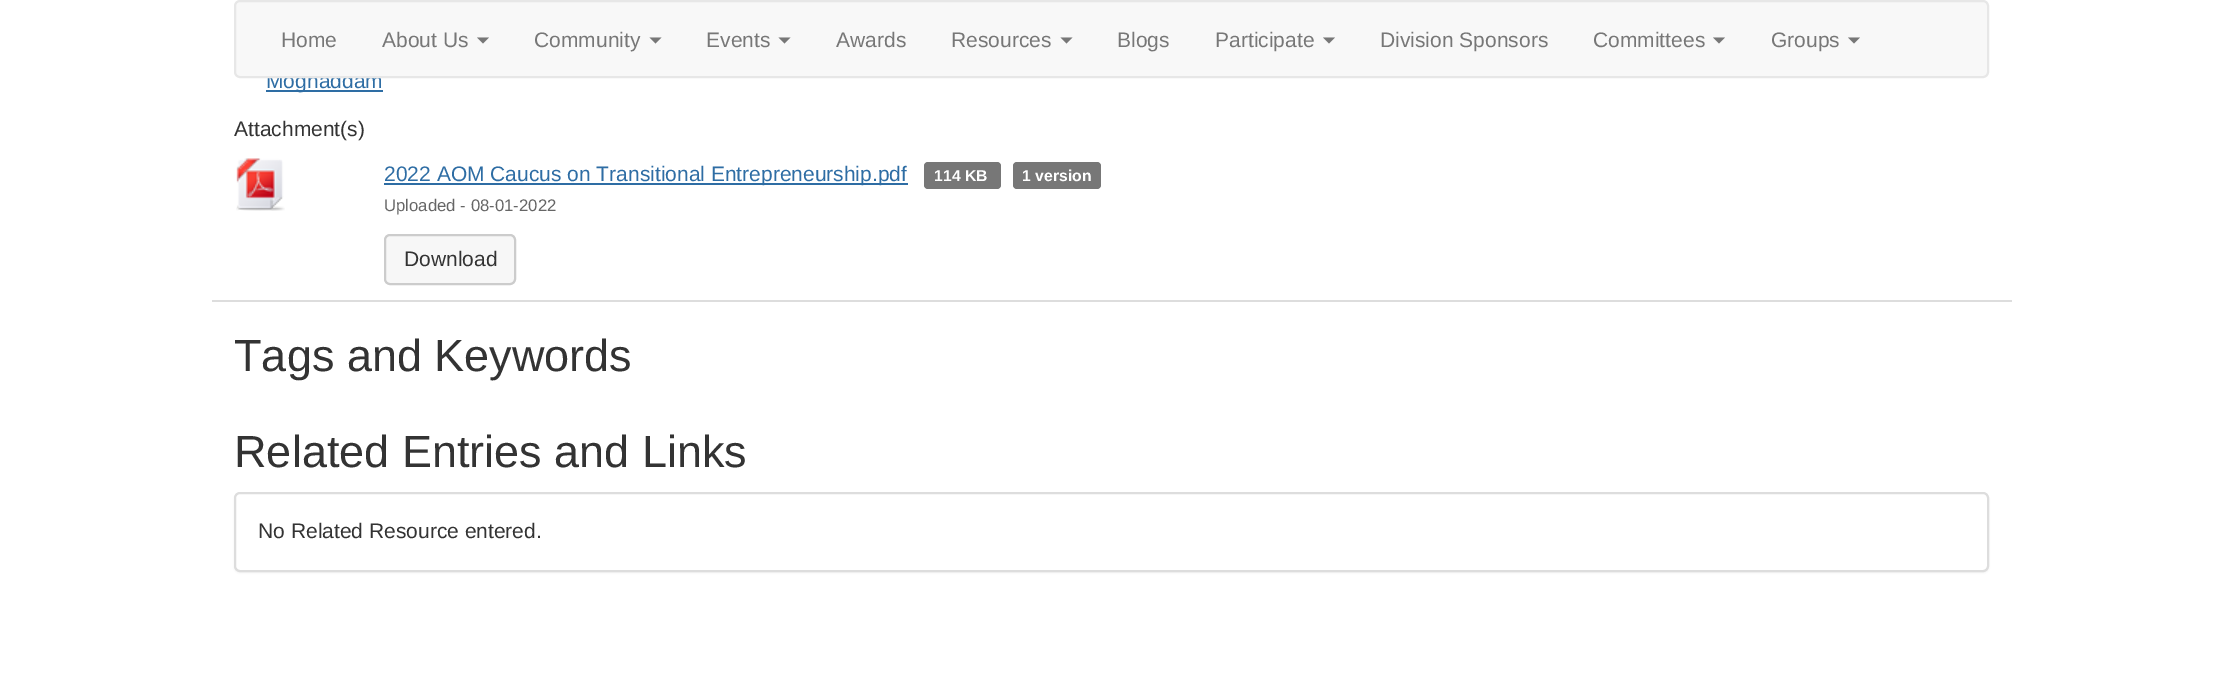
%!PS-Adobe-3.0
%%BoundingBox: 0 0 2222 688
%%LanguageLevel: 3
%%Pages: 1
%%EndComments
%%BeginProlog
/setink { dup -16 bitshift 255 div exch dup -8 bitshift 255 and 255 div exch 255 and 255 div setrgbcolor } def
/usefont { [ exch dup neg 0 0 3 -1 roll 0 0 ] selectfont } def
/setalpha { dup .setfillconstantalpha .setstrokeconstantalpha } def
/rrect { 5 dict begin { /r /h /w /y /x } { exch def } forall
  x r add y moveto x w add y 2 copy h add r arct x w add y h add x 1 index r arct
  x y h add x y r arct x y 2 copy exch w add exch r arct closepath end } def
/softshadow { 12 dict begin { /a /b /q /h /w /y /x } { exch def } forall gsave /was 0 def
  9 -2 -9 { dup b mul 4 div /e exch def 1 sub .425 mul 2.718 exch exp 1 add a .99 .min exch div /now exch def
    1 1 now sub 1 was sub div sub setalpha /was now def
    w h .min e 2 mul add 0 gt { x e sub y e sub w e 2 mul add h e 2 mul add
      q e add b .6 mul add w h .min 2 div e add .min 0 .max rrect fill } if } for grestore end } def
/drawimage { 5 dict begin { /h /w /y /x /name } { exch def } forall
  gsave x y translate w h scale
  w h 8 [w 0 0 h 0 0] name (r) file false 3 colorimage grestore end } def
%%EndProlog
%%BeginSetup
<< /PageSize [2222 688] /PageUsesTransparency true >> setpagedevice
%%EndSetup
%%Page: 1 1
0 .pushpdf14devicefilter
0 688 translate 1 -1 scale
4 setmiterlimit
16#FFFFFF setink
0 0 2222 688 rectfill
16#2E6DA4 setink
266 90 117 2 rectfill
/LiberationSans-Regular 21 usefont
266 88 moveto (Moghaddam) show
16#F8F8F8 setink
235 1 1753 76 5 rrect gsave fill grestore
16#E7E7E7 setink
2 setlinewidth
stroke
16#777777 setink
281 47 moveto (Home) show
382 47 moveto (About Us) show
477 37.5 moveto 489 37.5 lineto 483 43.5 lineto closepath fill
534 47 moveto (Community) show
649.5 37.5 moveto 661.5 37.5 lineto 655.5 43.5 lineto closepath fill
706 47 moveto (Events) show
778.5 37.5 moveto 790.5 37.5 lineto 784.5 43.5 lineto closepath fill
836 47 moveto (Awards) show
951 47 moveto (Resources) show
1060.5 37.5 moveto 1072.5 37.5 lineto 1066.5 43.5 lineto closepath fill
1117 47 moveto (Blogs) show
1215 47 moveto (Participate) show
1323 37.5 moveto 1335 37.5 lineto 1329 43.5 lineto closepath fill
1380 47 moveto (Division Sponsors) show
1593 47 moveto (Committees) show
1713 37.5 moveto 1725 37.5 lineto 1719 43.5 lineto closepath fill
1771 47 moveto (Groups) show
1848 37.5 moveto 1860 37.5 lineto 1854 43.5 lineto closepath fill
16#333333 setink
234 136 moveto (Attachment\(s\)) show
16#DDDDDD setink
212 300 1800 2 rectfill
(img1.raw) 236 158 49 53 drawimage
16#2E6DA4 setink
384 183 524 2 rectfill
384 181 moveto (2022 AOM Caucus on Transitional Entrepreneurship.pdf) show
16#777777 setink
924 162 77 27 4 rrect fill
/LiberationSans-Bold 15.75 usefont
16#FFFFFF setink
934 181 moveto (114 KB) show
16#777777 setink
1013 162 88 27 4 rrect fill
16#FFFFFF setink
1022 181 moveto (1 version) show
/LiberationSans-Regular 16.75 usefont
16#666666 setink
384 211 moveto (Uploaded - 08-01-2022) show
16#F7F7F7 setink
385 235 130 49 5 rrect gsave fill grestore
16#CCCCCC setink
stroke
/LiberationSans-Regular 21 usefont
16#333333 setink
404 266 moveto (Download) show
/LiberationSans-Regular 45 usefont
234 371 moveto (Tags and Keywords) show
234 467 moveto (Related Entries and Links) show
16#000000 setink
234 494 1755 79 6 1 0.05 softshadow
16#FFFFFF setink
235 493 1753 78 5 rrect gsave fill grestore
16#DDDDDD setink
stroke
/LiberationSans-Regular 21 usefont
16#333333 setink
258 538 moveto (No Related Resource entered.) show
.poppdf14devicefilter showpage
%%EOF
